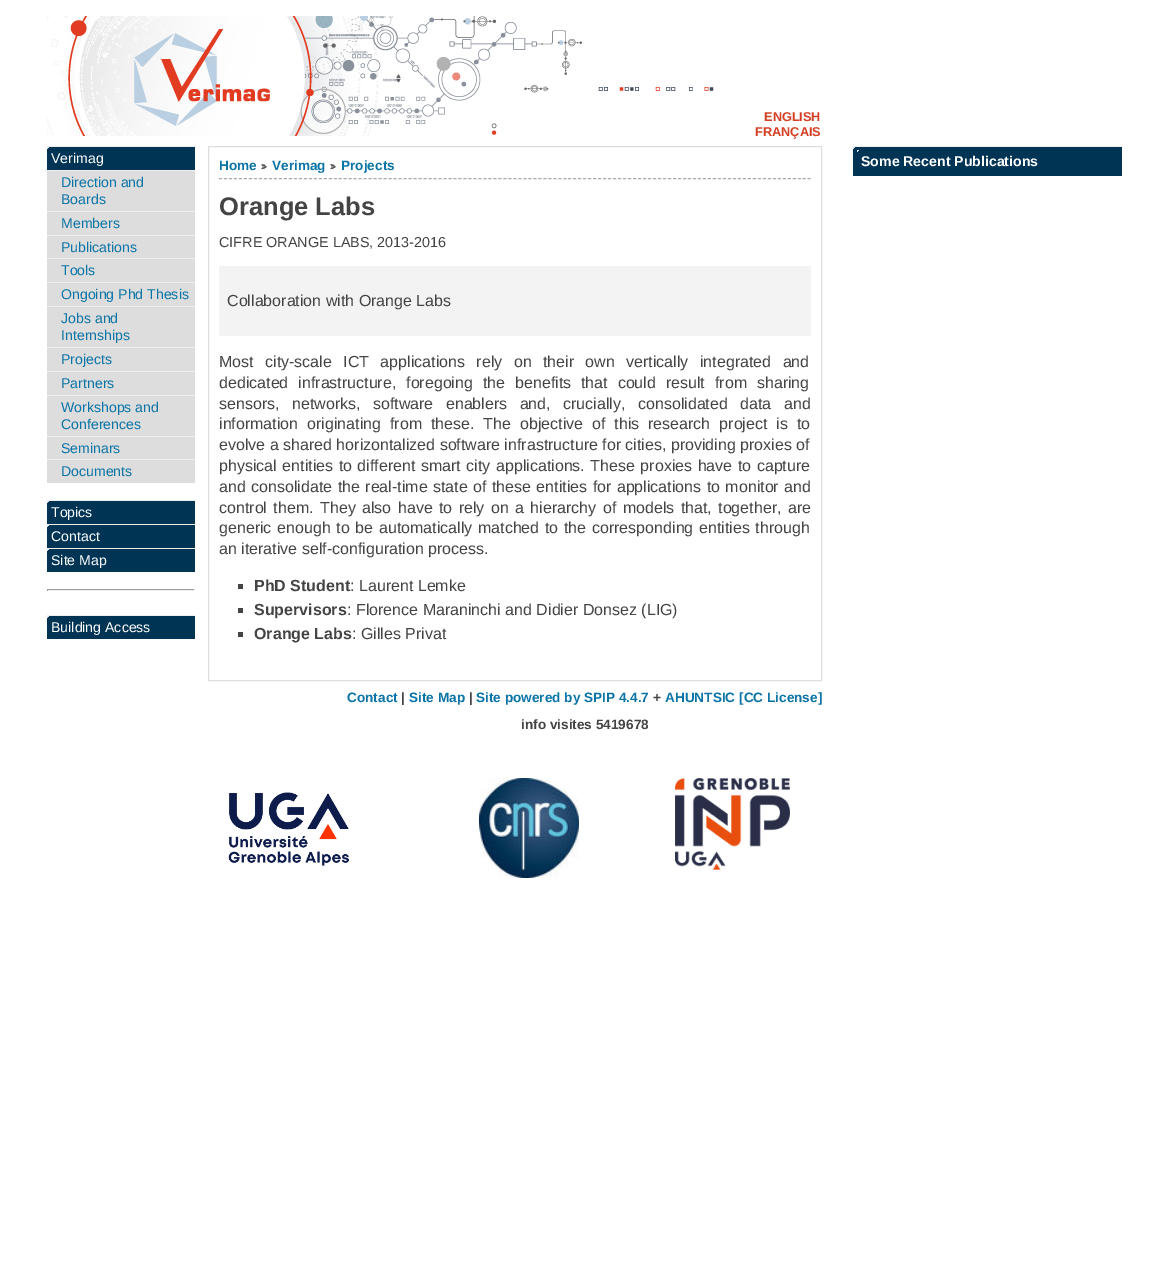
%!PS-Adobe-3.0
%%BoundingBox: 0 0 1169 1264
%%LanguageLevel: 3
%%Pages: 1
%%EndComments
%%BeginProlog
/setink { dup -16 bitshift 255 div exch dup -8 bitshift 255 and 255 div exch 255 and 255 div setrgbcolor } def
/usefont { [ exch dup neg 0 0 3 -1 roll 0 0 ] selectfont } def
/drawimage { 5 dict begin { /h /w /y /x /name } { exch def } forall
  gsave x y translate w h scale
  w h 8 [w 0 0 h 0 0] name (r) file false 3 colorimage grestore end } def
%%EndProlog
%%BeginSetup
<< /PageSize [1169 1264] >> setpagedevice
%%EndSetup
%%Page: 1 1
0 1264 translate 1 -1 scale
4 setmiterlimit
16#FFFFFF setink
0 0 1169 1264 rectfill
(img1.raw) 47 16 667 120 drawimage
16#EEEEEE setink
47 146 148 1 rectfill
16#003454 setink
47 147 148 23 rectfill
(img2.raw) 47 147 2 2 drawimage
/LiberationSans-Regular 14.1 usefont
16#FFFFFF setink
51 163 moveto (Verimag) show
16#EEEEEE setink
47 170 148 1 rectfill
16#DDDDDD setink
47 171 148 40 rectfill
(img3.raw) 47 171 2 2 drawimage
16#0A74A6 setink
61 187 moveto (Direction and) show
61 204 moveto (Boards) show
16#EEEEEE setink
47 211 148 1 rectfill
16#DDDDDD setink
47 212 148 23 rectfill
(img3.raw) 47 212 2 2 drawimage
16#0A74A6 setink
61 228 moveto (Members) show
16#EEEEEE setink
47 235 148 1 rectfill
16#DDDDDD setink
47 236 148 22 rectfill
(img3.raw) 47 236 2 2 drawimage
16#0A74A6 setink
61 252 moveto (Publications) show
16#EEEEEE setink
47 258 148 1 rectfill
16#DDDDDD setink
47 259 148 23 rectfill
(img3.raw) 47 259 2 2 drawimage
16#0A74A6 setink
61 275 moveto (Tools) show
16#EEEEEE setink
47 282 148 1 rectfill
16#DDDDDD setink
47 283 148 23 rectfill
(img3.raw) 47 283 2 2 drawimage
16#0A74A6 setink
61 299 moveto (Ongoing Phd Thesis) show
16#EEEEEE setink
47 306 148 1 rectfill
16#DDDDDD setink
47 307 148 40 rectfill
(img3.raw) 47 307 2 2 drawimage
16#0A74A6 setink
61 323 moveto (Jobs and) show
61 340 moveto (Internships) show
16#EEEEEE setink
47 347 148 1 rectfill
16#DDDDDD setink
47 348 148 23 rectfill
(img3.raw) 47 348 2 2 drawimage
16#0A74A6 setink
61 364 moveto (Projects) show
16#EEEEEE setink
47 371 148 1 rectfill
16#DDDDDD setink
47 372 148 23 rectfill
(img3.raw) 47 372 2 2 drawimage
16#0A74A6 setink
61 388 moveto (Partners) show
16#EEEEEE setink
47 395 148 1 rectfill
16#DDDDDD setink
47 396 148 40 rectfill
(img3.raw) 47 396 2 2 drawimage
16#0A74A6 setink
61 412 moveto (Workshops and) show
61 429 moveto (Conferences) show
16#EEEEEE setink
47 436 148 1 rectfill
16#DDDDDD setink
47 437 148 22 rectfill
(img3.raw) 47 437 2 2 drawimage
16#0A74A6 setink
61 453 moveto (Seminars) show
16#EEEEEE setink
47 459 148 1 rectfill
16#DDDDDD setink
47 460 148 23 rectfill
(img3.raw) 47 460 2 2 drawimage
16#0A74A6 setink
61 476 moveto (Documents) show
16#EEEEEE setink
47 500 148 1 rectfill
16#003454 setink
47 501 148 23 rectfill
(img2.raw) 47 501 2 2 drawimage
16#FFFFFF setink
51 517 moveto (Topics) show
16#EEEEEE setink
47 524 148 1 rectfill
16#003454 setink
47 525 148 23 rectfill
(img2.raw) 47 525 2 2 drawimage
16#FFFFFF setink
51 541 moveto (Contact) show
16#EEEEEE setink
47 548 148 1 rectfill
16#003454 setink
47 549 148 23 rectfill
(img2.raw) 47 549 2 2 drawimage
16#FFFFFF setink
51 565 moveto (Site Map) show
[
    [47 589 148 1 16#9F9F9F]
    [194 589 1 2 16#EEEEEE]
    [47 590 148 1 16#EEEEEE]
    [47 589 1 2 16#9F9F9F]
    [47 615 148 1 16#EEEEEE]
    [47 616 148 23 16#003454]
] { aload pop setink rectfill } forall
(img2.raw) 47 616 2 2 drawimage
16#FFFFFF setink
51 632 moveto (Building Access) show
/LiberationSans-Bold 12.75 usefont
16#D44026 setink
764 121 moveto (ENGLISH) show
755 136 moveto (FRANÇAIS) show
/LiberationSans-Bold 13.6 usefont
16#0A74A6 setink
347 702 moveto (Contact) show
16#444444 setink
401 702 moveto (|) show
16#0A74A6 setink
409 702 moveto (Site Map) show
16#444444 setink
469 702 moveto (|) show
16#0A74A6 setink
476 702 moveto (Site powered by SPIP 4.4.7) show
16#444444 setink
653 702 moveto (+) show
16#0A74A6 setink
665 702 moveto (AHUNTSIC [CC License]) show
16#444444 setink
521 729 moveto (info visites 5419678) show
(img4.raw) 228 792 121 74 drawimage
(img5.raw) 479 778 100 100 drawimage
(img6.raw) 675 778 115 92 drawimage
16#EEEEEE setink
853 146 269 1 rectfill
16#003454 setink
853 147 269 29 rectfill
(img2.raw) 853 147 2 2 drawimage
(img2.raw) 857 150 2 2 drawimage
/LiberationSans-Bold 14.1 usefont
16#FFFFFF setink
861 166 moveto (Some Recent Publications) show
16#DEDEDE setink
208.5 146.5 613 534 rectstroke
/LiberationSans-Bold 13.6 usefont
16#0A74A6 setink
219 170 moveto (Home) show
16#A7A7A7 setink
262 164 3 5 rectfill
/LiberationSans-Bold 10 usefont
16#444444 setink
261 170 moveto (>) show
/LiberationSans-Bold 13.6 usefont
16#0A74A6 setink
272 170 moveto (Verimag) show
16#A7A7A7 setink
331 164 3 5 rectfill
/LiberationSans-Bold 10 usefont
16#444444 setink
330 170 moveto (>) show
/LiberationSans-Bold 13.6 usefont
16#0A74A6 setink
341 170 moveto (Projects) show
16#AAAAAA setink
[3 1.99] 0 setdash
219 178.5 moveto 811 178.5 lineto stroke
/LiberationSans-Bold 25.5 usefont
16#444444 setink
219 215 moveto (Orange Labs) show
/LiberationSans-Regular 14.4 usefont
219 247 moveto (CIFRE ORANGE LABS, 2013-2016) show
16#F3F3F3 setink
219 266 592 70 rectfill
/LiberationSans-Regular 16 usefont
16#444444 setink
227 306 moveto (Collaboration with Orange Labs) show
219 367 moveto 7 0 32 (Most city-scale ICT applications rely on their own vertically integrated and) widthshow
219 388 moveto 5.5 0 32 (dedicated infrastructure, foregoing the benefits that could result from sharing) widthshow
219 409 moveto 8 0 32 (sensors, networks, software enablers and, crucially, consolidated data and) widthshow
219 429 moveto 4.5 0 32 (information originating from these. The objective of this research project is to) widthshow
219 450 moveto (evolve a shared horizontalized software infrastructure for cities, providing proxies of) show
219 471 moveto 1.1 0 32 (physical entities to different smart city applications. These proxies have to capture) widthshow
219 492 moveto 1 0 32 (and consolidate the real-time state of these entities for applications to monitor and) widthshow
219 513 moveto 2 0 32 (control them. They also have to rely on a hierarchy of models that, together, are) widthshow
219 533 moveto 1.25 0 32 (generic enough to be automatically matched to the corresponding entities through) widthshow
219 554 moveto (an iterative self-configuration process.) show
238 584 5 5 rectfill
/LiberationSans-Bold 16 usefont
254 591 moveto (PhD Student) show
/LiberationSans-Regular 16 usefont
350 591 moveto (: Laurent Lemke) show
238 608 5 5 rectfill
/LiberationSans-Bold 16 usefont
254 615 moveto (Supervisors) show
/LiberationSans-Regular 16 usefont
347 615 moveto (: Florence Maraninchi and Didier Donsez \(LIG\)) show
238 632 5 5 rectfill
/LiberationSans-Bold 16 usefont
254 639 moveto (Orange Labs) show
/LiberationSans-Regular 16 usefont
352 639 moveto (: Gilles Privat) show
showpage
%%EOF
